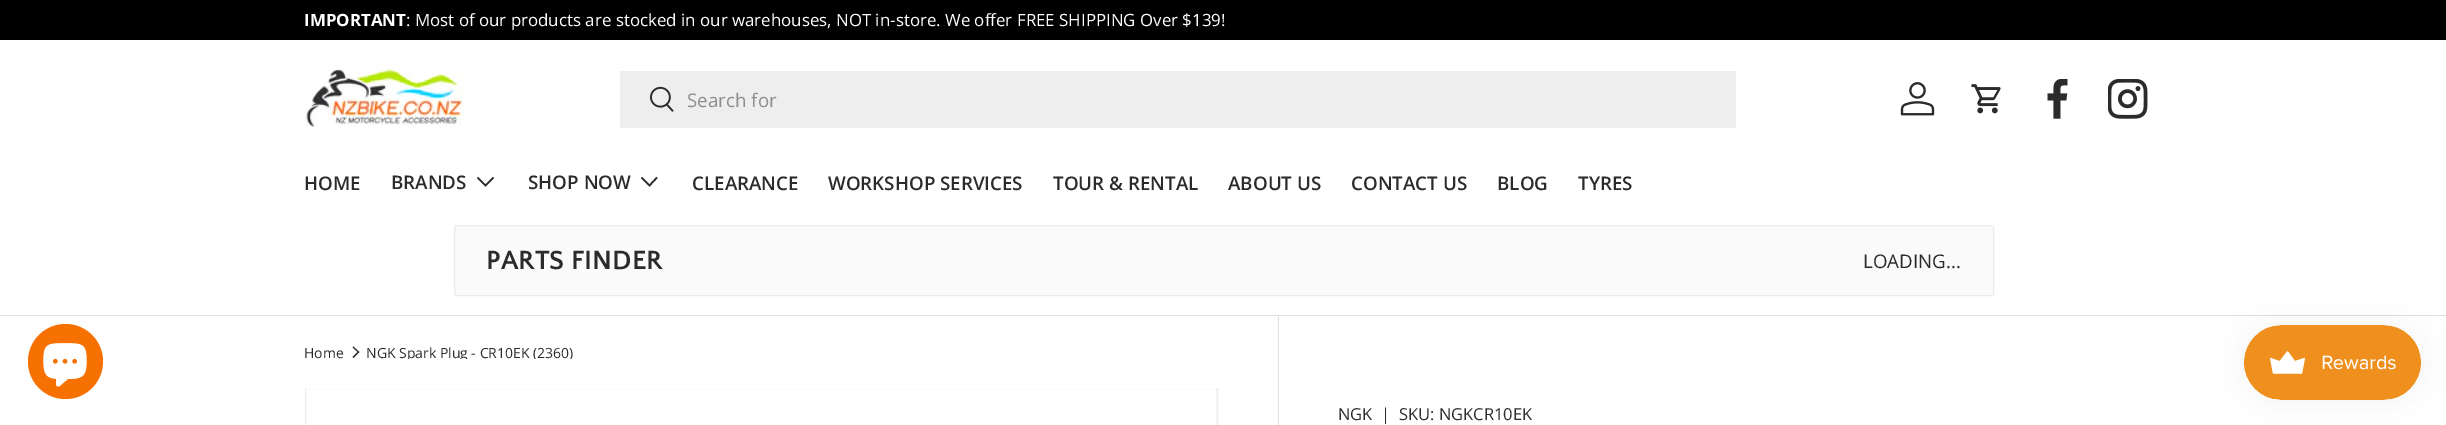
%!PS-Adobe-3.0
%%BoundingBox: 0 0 2446 425
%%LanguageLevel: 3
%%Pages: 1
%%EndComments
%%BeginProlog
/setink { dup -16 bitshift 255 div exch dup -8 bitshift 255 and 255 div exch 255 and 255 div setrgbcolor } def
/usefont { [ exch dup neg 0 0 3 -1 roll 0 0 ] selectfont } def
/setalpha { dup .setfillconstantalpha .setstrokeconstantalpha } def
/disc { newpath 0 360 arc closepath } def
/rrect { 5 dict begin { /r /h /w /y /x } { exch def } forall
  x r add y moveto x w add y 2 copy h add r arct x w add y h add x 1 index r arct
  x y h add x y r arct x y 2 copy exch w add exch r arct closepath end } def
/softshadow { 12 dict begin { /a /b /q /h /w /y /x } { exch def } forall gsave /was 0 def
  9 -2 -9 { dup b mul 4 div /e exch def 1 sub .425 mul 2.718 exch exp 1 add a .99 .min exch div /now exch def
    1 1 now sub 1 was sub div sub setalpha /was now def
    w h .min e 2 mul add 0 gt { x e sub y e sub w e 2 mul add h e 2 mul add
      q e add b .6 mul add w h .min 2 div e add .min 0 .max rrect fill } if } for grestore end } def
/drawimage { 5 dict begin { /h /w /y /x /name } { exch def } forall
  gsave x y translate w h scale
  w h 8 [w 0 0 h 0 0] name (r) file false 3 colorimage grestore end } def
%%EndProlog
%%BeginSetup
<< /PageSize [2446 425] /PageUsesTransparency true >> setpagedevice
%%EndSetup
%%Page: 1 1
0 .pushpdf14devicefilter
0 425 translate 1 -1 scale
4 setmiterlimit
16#FFFFFF setink
0 0 2446 425 rectfill
16#000000 setink
0 0 2446 40 rectfill
/OpenSans-Bold 16.9 usefont
16#FFFFFF setink
304 26 moveto (IMPORTANT) show
/OpenSans-Regular 16.9 usefont
406 26 moveto (: Most of our products are stocked in our warehouses, NOT in-store. We offer FREE SHIPPING Over $139!) show
16#DFDFDF setink
0 315 2446 1 rectfill
(img1.raw) 305 68 160 59 drawimage
16#EEEEEE setink
620 71 1116 57 rectfill
(img2.raw) 650 86 24 26 drawimage
/OpenSans-Regular 18.75 usefont
16#8C8D8C setink
687 107 moveto (Search for) show
(img3.raw) 1900 82 35 34 drawimage
(img4.raw) 1971 84 30 30 drawimage
(img5.raw) 2047 79 21 40 drawimage
(img6.raw) 2108 79 40 40 drawimage
/OpenSans-SemiBold 18.75 usefont
16#2A2B2A setink
304 190 moveto (HOME) show
391 189 moveto (BRANDS) show
1.6 setlinewidth
493.5 177.5 moveto 485.5 185.5 lineto 477.5 177.5 lineto stroke
528 189 moveto (SHOP NOW) show
657 177.5 moveto 649.5 185.5 lineto 641.5 177.5 lineto stroke
[
    [(CLEARANCE) 692 190]
    [(WORKSHOP SERVICES) 828 190]
    [(TOUR & RENTAL) 1053 190]
    [(ABOUT US) 1228 190]
    [(CONTACT US) 1351 190]
    [(BLOG) 1497 190]
    [(TYRES) 1578 190]
] { aload pop moveto show } forall
16#FAFAFA setink
454.5 225.5 1539 70 2 rrect gsave fill grestore
16#EBEBEB setink
1 setlinewidth
stroke
/QuattrocentoSans-Bold 27.5 usefont
16#2A2B2A setink
486 269 moveto (PARTS FINDER) show
/OpenSans-Regular 18.75 usefont
1863 268 moveto (LOADING...) show
16#F77002 setink
65.5 361.5 37.5 disc fill
(img7.raw) 43 343 44 44 drawimage
/OpenSans-Regular 14 usefont
16#2A2B2A setink
304 358 moveto (Home) show
1.1 setlinewidth
353 347 moveto 358.5 352 lineto 353 357.5 lineto stroke
gsave
366 345 209 14 rectclip
366 358 moveto (NGK Spark Plug - CR10EK \(2360\)) show
grestore
16#F4F4F4 setink
1216 389 1 36 rectfill
16#EEEEEE setink
1 setlinewidth
305.5 388.5 912 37 rectstroke
16#FFFFFF setink
306 388 910 1 rectfill
16#DFDFDF setink
1278 316 1 109 rectfill
/OpenSans-Regular 16.5 usefont
16#2A2B2A setink
[
    [(NGK) 1338 420]
    [(|) 1381 420]
    [(SKU: NGKCR10EK) 1399 420]
] { aload pop moveto show } forall
16#000000 setink
2244 325 177 75 37.5 15.5 0.05 softshadow
(img8.raw) 2244 325 177 75 drawimage
.poppdf14devicefilter showpage
%%EOF
